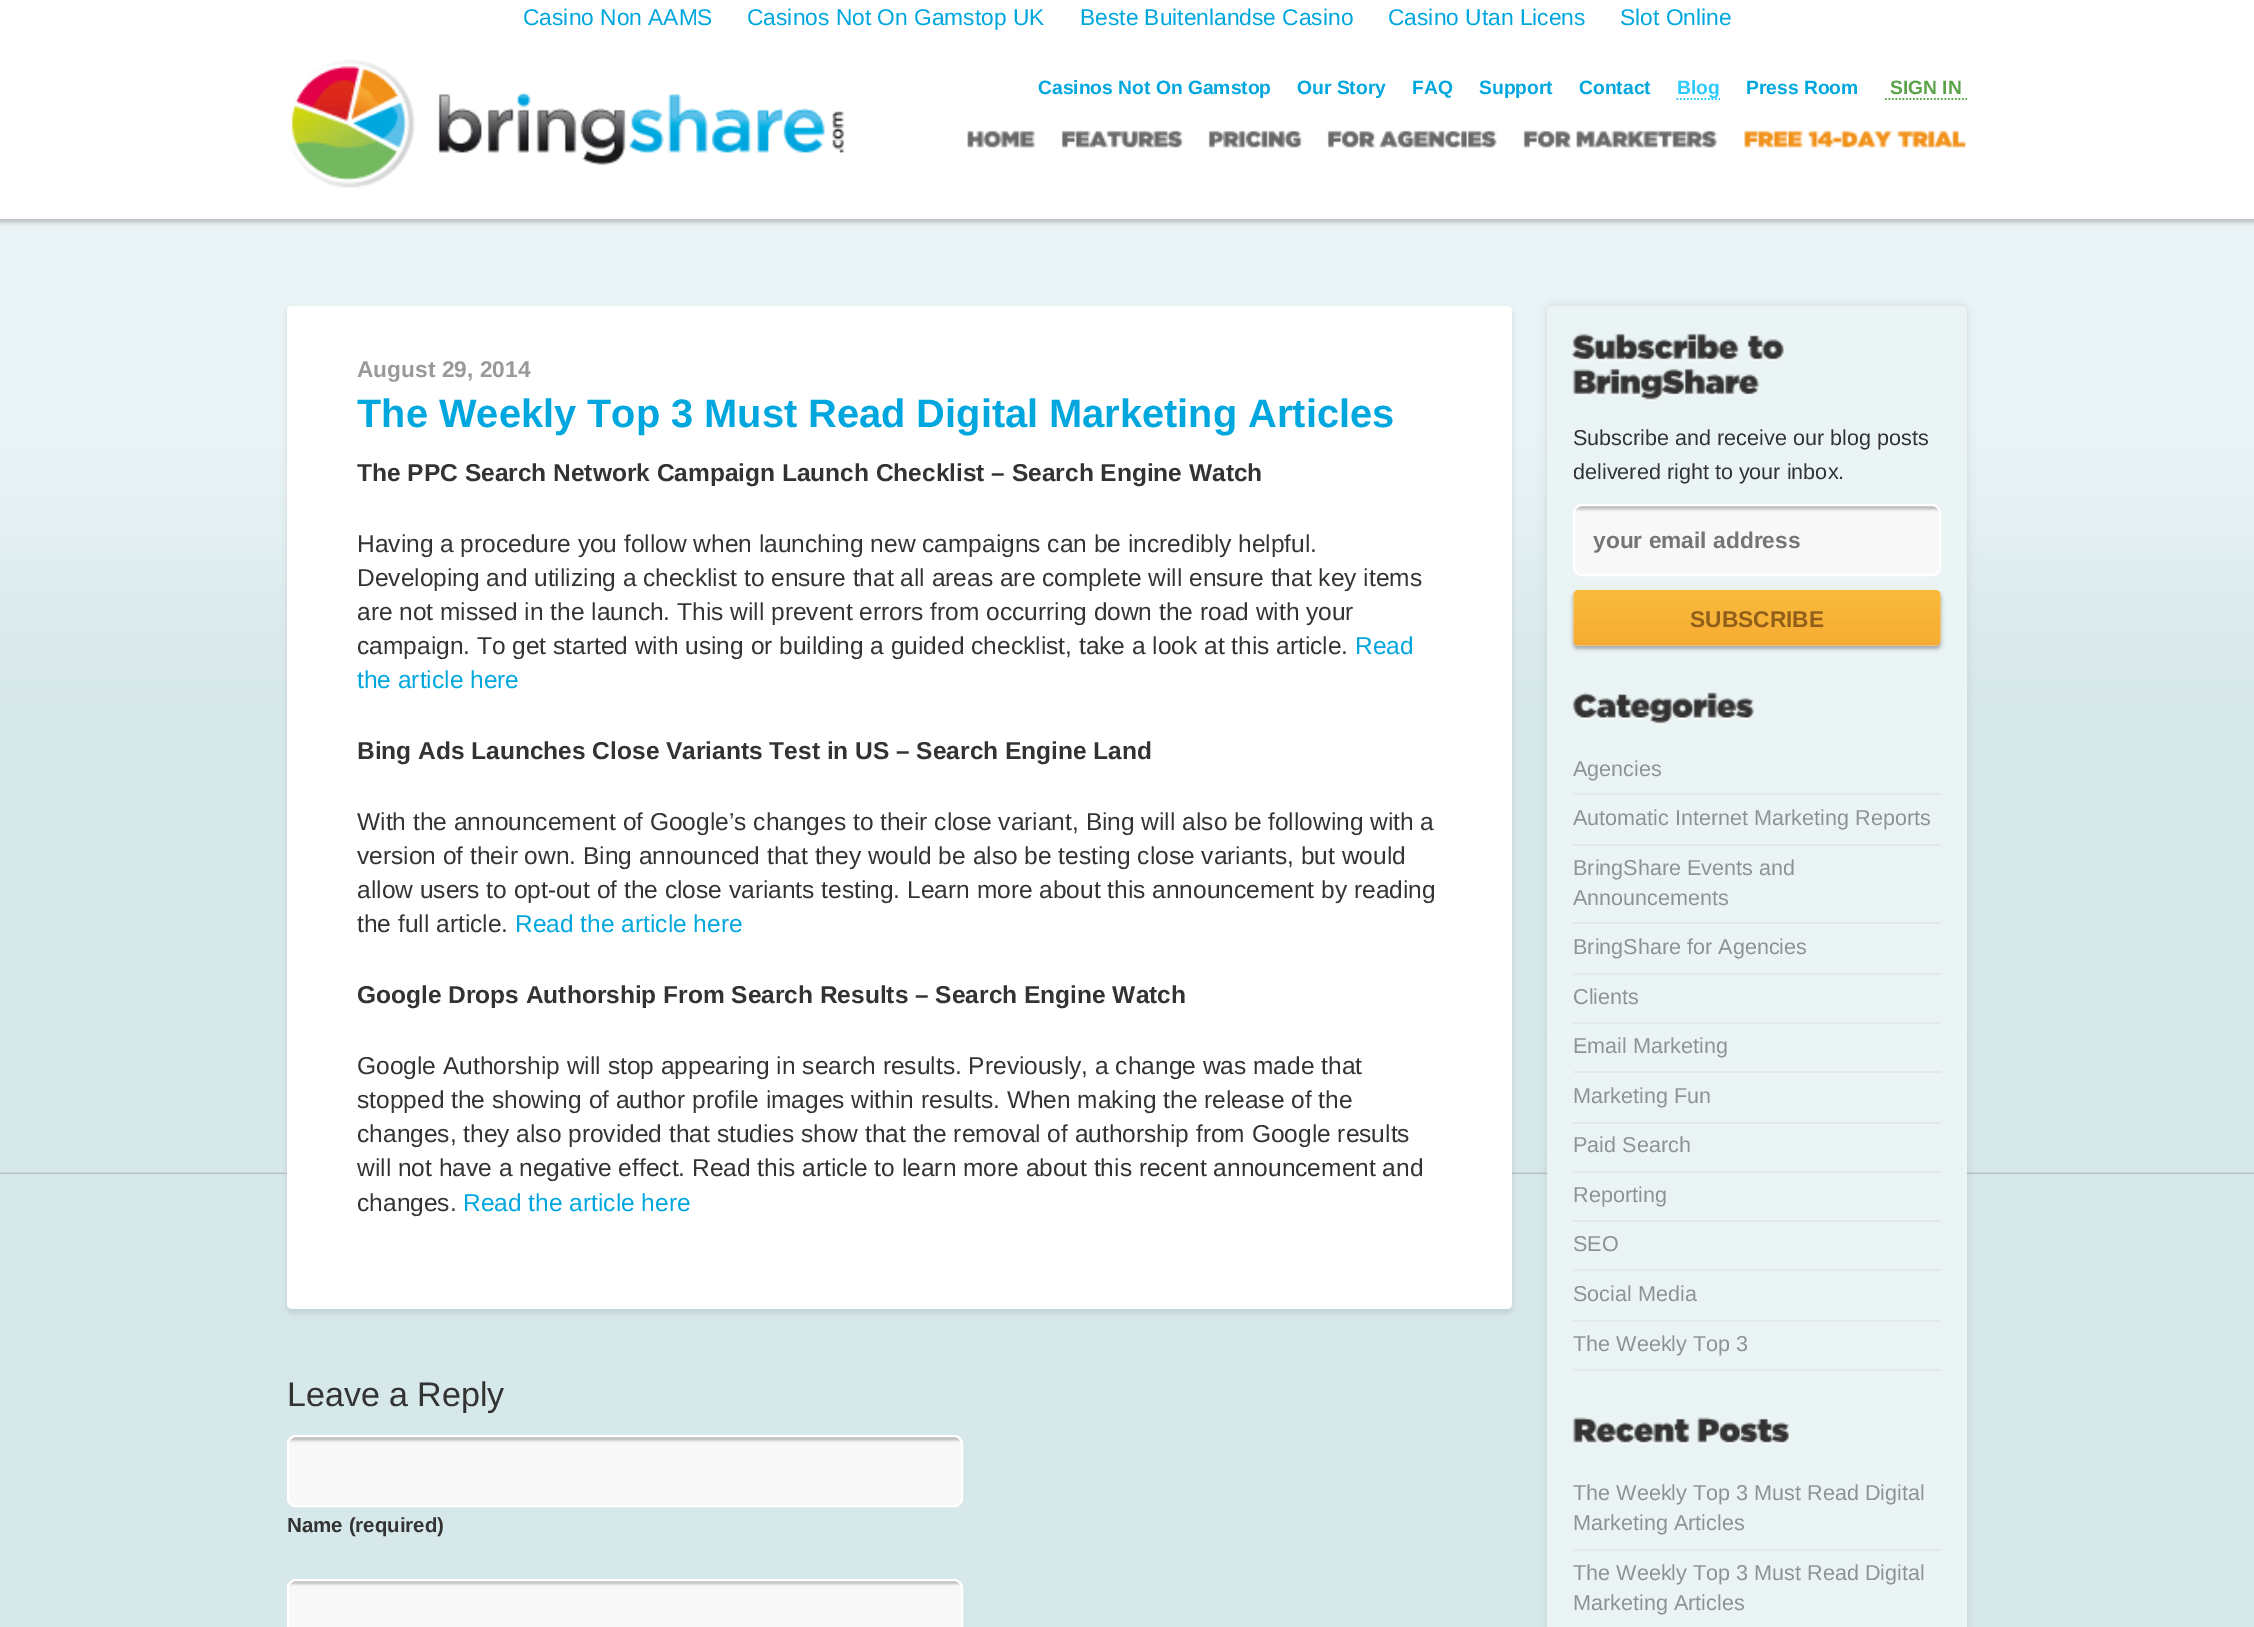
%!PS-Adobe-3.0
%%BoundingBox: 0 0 2254 1627
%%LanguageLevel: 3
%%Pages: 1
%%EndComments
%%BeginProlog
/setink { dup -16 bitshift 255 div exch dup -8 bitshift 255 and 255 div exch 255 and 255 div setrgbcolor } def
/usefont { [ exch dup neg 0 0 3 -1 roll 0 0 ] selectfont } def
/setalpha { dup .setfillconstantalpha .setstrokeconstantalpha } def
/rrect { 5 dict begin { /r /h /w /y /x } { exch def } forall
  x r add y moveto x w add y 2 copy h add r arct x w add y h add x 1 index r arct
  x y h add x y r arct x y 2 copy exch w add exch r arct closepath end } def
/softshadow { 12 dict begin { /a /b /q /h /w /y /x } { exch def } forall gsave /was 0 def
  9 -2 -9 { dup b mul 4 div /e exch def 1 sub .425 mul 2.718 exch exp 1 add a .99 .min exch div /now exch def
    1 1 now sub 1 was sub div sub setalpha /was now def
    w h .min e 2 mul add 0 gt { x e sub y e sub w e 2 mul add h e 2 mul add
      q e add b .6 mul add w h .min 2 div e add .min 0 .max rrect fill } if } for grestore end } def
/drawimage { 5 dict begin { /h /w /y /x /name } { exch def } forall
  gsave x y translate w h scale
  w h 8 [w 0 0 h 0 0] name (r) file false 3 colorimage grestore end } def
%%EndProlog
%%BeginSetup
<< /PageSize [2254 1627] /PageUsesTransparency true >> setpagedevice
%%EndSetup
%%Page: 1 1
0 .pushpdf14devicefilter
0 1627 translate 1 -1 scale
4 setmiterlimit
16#FFFFFF setink
0 0 2254 1627 rectfill
/LiberationSans-Regular 22.75 usefont
16#00A7DF setink
[
    [(Casino Non AAMS) 523 25]
    [(Casinos Not On Gamstop UK) 747 25]
    [(Beste Buitenlandse Casino) 1080 25]
    [(Casino Utan Licens) 1388 25]
    [(Slot Online) 1620 25]
] { aload pop moveto show } forall
(img1.raw) 291 59 553 129 drawimage
/LiberationSans-Bold 19.25 usefont
[
    [(Casinos Not On Gamstop) 1038 94]
    [(Our Story) 1297 94]
    [(FAQ) 1412 94]
    [(Support) 1479 94]
    [(Contact) 1579 94]
] { aload pop moveto show } forall
16#2DCAFF setink
1.8 setlinewidth
[1.75 1.75] 0 setdash
1676.5 99 moveto 1720 99 lineto stroke
1677 94 moveto (Blog) show
16#00A7DF setink
1746 94 moveto (Press Room) show
16#5AA248 setink
1890 94 moveto (SIGN IN) show
1885 99 moveto 1967 99 lineto stroke
(img2.raw) 967 130 68 18 drawimage
(img3.raw) 1061 130 123 18 drawimage
(img4.raw) 1208 130 95 18 drawimage
(img5.raw) 1327 130 49 18 drawimage
(img6.raw) 1379 130 118 18 drawimage
(img5.raw) 1523 130 49 18 drawimage
(img7.raw) 1576 130 142 18 drawimage
(img8.raw) 1744 130 59 18 drawimage
(img9.raw) 1807 130 86 18 drawimage
(img10.raw) 1897 130 69 18 drawimage
16#D7E8EB setink
0 1174 2254 453 rectfill
(img11.raw) 0 219 2254 956 drawimage
16#000000 setink
287 310 1225 1003 5 2.5 0.1 softshadow
16#FFFFFF setink
287 306 1225 1003 5 rrect fill
/LiberationSans-Bold 22.75 usefont
16#999999 setink
357 377 moveto (August 29, 2014) show
/LiberationSans-Bold 39.8 usefont
16#00A7DF setink
357 427 moveto (The Weekly Top 3 Must Read Digital Marketing Articles) show
/LiberationSans-Bold 24.5 usefont
16#333333 setink
357 481 moveto (The PPC Search Network Campaign Launch Checklist – Search Engine Watch) show
/LiberationSans-Regular 24.5 usefont
[
    [(Having a procedure you follow when launching new campaigns can be incredibly helpful.) 357 552]
    [(Developing and utilizing a checklist to ensure that all areas are complete will ensure that key items) 357 586]
    [(are not missed in the launch. This will prevent errors from occurring down the road with your) 357 620]
    [(campaign. To get started with using or building a guided checklist, take a look at this article.) 357 654]
] { aload pop moveto show } forall
16#00A7DF setink
1355 654 moveto (Read) show
357 688 moveto (the article here) show
/LiberationSans-Bold 24.5 usefont
16#333333 setink
357 759 moveto (Bing Ads Launches Close Variants Test in US – Search Engine Land) show
/LiberationSans-Regular 24.5 usefont
[
    [(With the announcement of Google’s changes to their close variant, Bing will also be following with a) 357 830]
    [(version of their own. Bing announced that they would be also be testing close variants, but would) 357 864]
    [(allow users to opt-out of the close variants testing. Learn more about this announcement by reading) 357 898]
    [(the full article.) 357 932]
] { aload pop moveto show } forall
16#00A7DF setink
515 932 moveto (Read the article here) show
/LiberationSans-Bold 24.5 usefont
16#333333 setink
357 1003 moveto (Google Drops Authorship From Search Results – Search Engine Watch) show
/LiberationSans-Regular 24.5 usefont
[
    [(Google Authorship will stop appearing in search results. Previously, a change was made that) 357 1074]
    [(stopped the showing of author profile images within results. When making the release of the) 357 1108]
    [(changes, they also provided that studies show that the removal of authorship from Google results) 357 1142]
    [(will not have a negative effect. Read this article to learn more about this recent announcement and) 357 1176]
    [(changes.) 357 1211]
] { aload pop moveto show } forall
16#00A7DF setink
463 1211 moveto (Read the article here) show
/LiberationSans-Regular 34 usefont
16#333333 setink
287 1406 moveto (Leave a Reply) show
16#F8F8F8 setink
287 1435 676 72 9 rrect fill
(img12.raw) 287 1436 675 7 drawimage
16#FFFFFF setink
2 setlinewidth
[] 0 setdash
288 1436 674 70 8 rrect stroke
/LiberationSans-Bold 20.5 usefont
16#333333 setink
287 1532 moveto (Name \(required\)) show
16#F8F8F8 setink
287 1579 676 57 9 rrect fill
(img13.raw) 287 1580 675 6 drawimage
16#FFFFFF setink
288 1580 674 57 8 rrect stroke
16#000000 setink
1547 306 420 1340 5 4.5 0.1 softshadow
16#EBF4F5 setink
1547 306 420 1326 5 rrect fill
(img14.raw) 1571 333 168 28 drawimage
(img15.raw) 1747 335 37 26 drawimage
(img16.raw) 1572 368 188 33 drawimage
/LiberationSans-Regular 21.6 usefont
16#333333 setink
1573 445 moveto (Subscribe and receive our blog posts) show
1573 479 moveto (delivered right to your inbox.) show
16#F8F8F8 setink
1573 504 368 72 9 rrect fill
(img17.raw) 1574 505 366 7 drawimage
16#FFFFFF setink
1574 505 366 70 8 rrect stroke
/LiberationSans-Bold 22.75 usefont
16#757575 setink
1593 548 moveto (your email address) show
16#000000 setink
1573 593 368 56 5 2 0.3 softshadow
(img18.raw) 1573 589 368 57 drawimage
16#915F1A setink
1690 627 moveto (SUBSCRIBE) show
(img19.raw) 1572 692 182 33 drawimage
16#E1E9EA setink
1573 793 368 2 rectfill
/LiberationSans-Regular 21.6 usefont
16#8D9393 setink
1573 776 moveto (Agencies) show
16#E1E9EA setink
1573 844 368 2 rectfill
16#8D9393 setink
1573 825 moveto (Automatic Internet Marketing Reports) show
16#E1E9EA setink
1573 922 368 2 rectfill
16#8D9393 setink
1573 875 moveto (BringShare Events and) show
1573 905 moveto (Announcements) show
16#E1E9EA setink
1573 973 368 2 rectfill
16#8D9393 setink
1573 954 moveto (BringShare for Agencies) show
16#E1E9EA setink
1573 1022 368 2 rectfill
16#8D9393 setink
1573 1004 moveto (Clients) show
16#E1E9EA setink
1573 1071 368 2 rectfill
16#8D9393 setink
1573 1053 moveto (Email Marketing) show
16#E1E9EA setink
1573 1122 368 2 rectfill
16#8D9393 setink
1573 1103 moveto (Marketing Fun) show
16#E1E9EA setink
1573 1171 368 2 rectfill
16#8D9393 setink
1573 1152 moveto (Paid Search) show
16#E1E9EA setink
1573 1220 368 2 rectfill
16#8D9393 setink
1573 1202 moveto (Reporting) show
16#E1E9EA setink
1573 1269 368 2 rectfill
16#8D9393 setink
1573 1251 moveto (SEO) show
16#E1E9EA setink
1573 1320 368 2 rectfill
16#8D9393 setink
1573 1301 moveto (Social Media) show
16#E1E9EA setink
1573 1369 368 2 rectfill
16#8D9393 setink
1573 1351 moveto (The Weekly Top 3) show
(img20.raw) 1572 1417 118 27 drawimage
(img21.raw) 1697 1417 92 27 drawimage
16#E1E9EA setink
1573 1549 368 2 rectfill
16#8D9393 setink
[
    [(The Weekly Top 3 Must Read Digital) 1573 1500]
    [(Marketing Articles) 1573 1530]
    [(The Weekly Top 3 Must Read Digital) 1573 1580]
    [(Marketing Articles) 1573 1610]
] { aload pop moveto show } forall
.poppdf14devicefilter showpage
%%EOF
